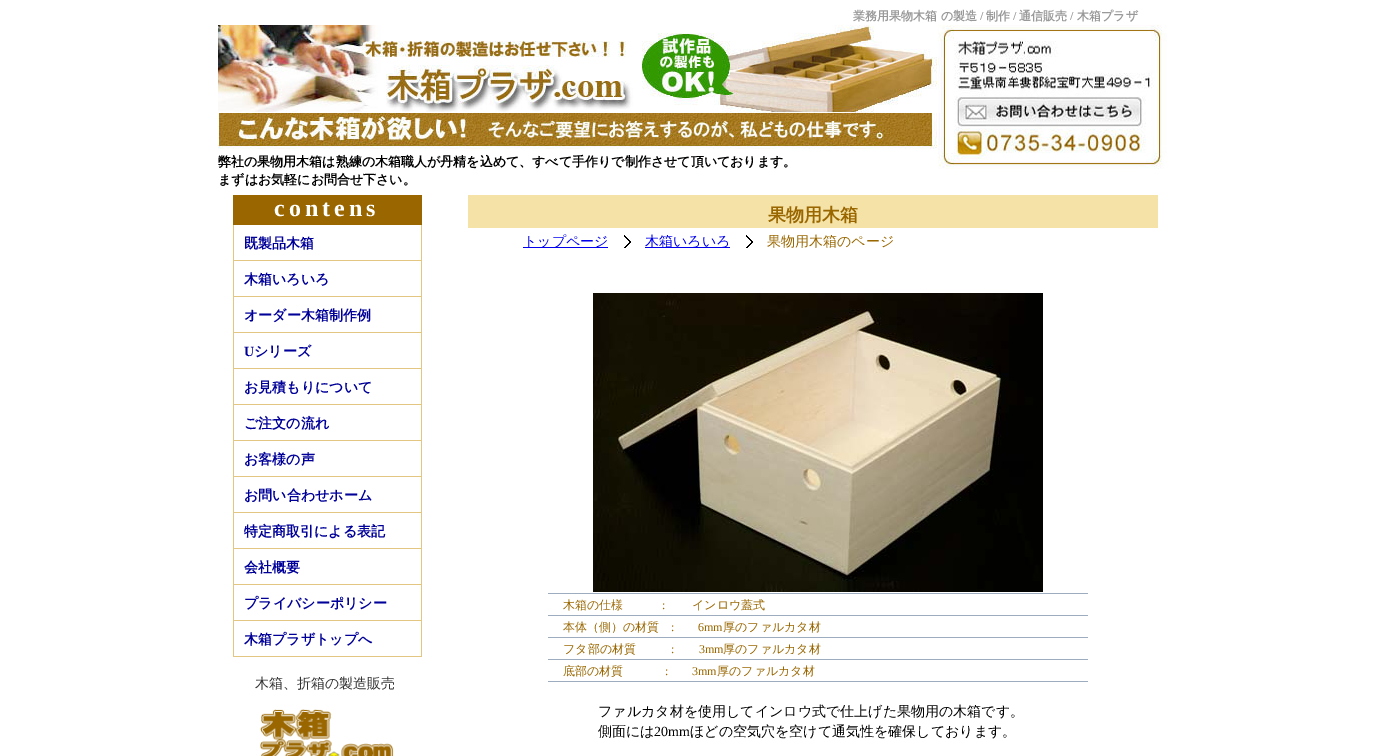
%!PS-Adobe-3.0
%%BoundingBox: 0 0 1385 756
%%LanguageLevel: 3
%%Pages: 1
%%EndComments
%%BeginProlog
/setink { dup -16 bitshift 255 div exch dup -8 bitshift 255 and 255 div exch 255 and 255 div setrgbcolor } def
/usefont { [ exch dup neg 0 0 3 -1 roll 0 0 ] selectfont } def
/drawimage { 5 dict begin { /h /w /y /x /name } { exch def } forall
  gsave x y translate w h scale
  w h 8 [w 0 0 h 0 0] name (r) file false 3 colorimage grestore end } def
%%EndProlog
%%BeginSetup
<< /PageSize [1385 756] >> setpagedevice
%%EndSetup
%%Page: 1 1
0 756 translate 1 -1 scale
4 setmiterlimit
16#FFFFFF setink
0 0 1385 756 rectfill
/WenQuanYiZenHei-Bold 12 usefont
16#999999 setink
853 20 moveto (業務用果物木箱 の製造) show
/LiberationSerif-Bold 12 usefont
980 20 moveto (/) show
/WenQuanYiZenHei-Bold 12 usefont
986 20 moveto (制作) show
/LiberationSerif-Bold 12 usefont
1013 20 moveto (/) show
/WenQuanYiZenHei-Bold 12 usefont
1019 20 moveto (通信販売) show
/LiberationSerif-Bold 12 usefont
1070 20 moveto (/) show
/WenQuanYiZenHei-Bold 12 usefont
1077 20 moveto (木箱プラザ) show
(img1.raw) 218 25 719 124 drawimage
/WenQuanYiZenHei-Bold 13 usefont
16#000000 setink
218 166 moveto (弊社の果物用木箱は熟練の木箱職人が丹精を込めて、すべて手作りで制作させて頂いております。) show
218 184 moveto (まずはお気軽にお問合せ下さい。) show
(img2.raw) 938 25 229 144 drawimage
16#996600 setink
233 195 189 30 rectfill
/LiberationSerif-Bold 24 usefont
16#FFFFFF setink
274 216 moveto 4 0 (contens) ashow
[
    [421 225 1 432 16#E3C682]
    [233 260 189 1 16#E3C682]
    [233 225 1 36 16#E3C682]
] { aload pop setink rectfill } forall
/WenQuanYiZenHei-Bold 14 usefont
16#000099 setink
244 248 moveto (既製品木箱) show
16#E3C682 setink
233 296 189 1 rectfill
233 261 1 36 rectfill
16#000099 setink
244 284 moveto (木箱いろいろ) show
16#E3C682 setink
233 332 189 1 rectfill
233 297 1 36 rectfill
16#000099 setink
244 320 moveto (オーダー木箱制作例) show
16#E3C682 setink
233 368 189 1 rectfill
233 333 1 36 rectfill
/LiberationSerif-Bold 14 usefont
16#000099 setink
244 356 moveto (U) show
/WenQuanYiZenHei-Bold 14 usefont
254 356 moveto (シリーズ) show
16#E3C682 setink
233 404 189 1 rectfill
233 369 1 36 rectfill
16#000099 setink
244 392 moveto (お見積もりについて) show
16#E3C682 setink
233 440 189 1 rectfill
233 405 1 36 rectfill
16#000099 setink
244 428 moveto (ご注文の流れ) show
16#E3C682 setink
233 476 189 1 rectfill
233 441 1 36 rectfill
16#000099 setink
244 464 moveto (お客様の声) show
16#E3C682 setink
233 512 189 1 rectfill
233 477 1 36 rectfill
16#000099 setink
244 500 moveto (お問い合わせホーム) show
16#E3C682 setink
233 548 189 1 rectfill
233 513 1 36 rectfill
16#000099 setink
244 536 moveto (特定商取引による表記) show
16#E3C682 setink
233 584 189 1 rectfill
233 549 1 36 rectfill
16#000099 setink
244 572 moveto (会社概要) show
16#E3C682 setink
233 620 189 1 rectfill
233 585 1 36 rectfill
16#000099 setink
244 608 moveto (プライバシーポリシー) show
16#E3C682 setink
233 656 189 1 rectfill
233 621 1 36 rectfill
16#000099 setink
244 644 moveto (木箱プラザトップへ) show
16#F4E2A6 setink
468 195 690 33 rectfill
/WenQuanYiZenHei-Bold 18 usefont
16#996600 setink
768 221 moveto (果物用木箱) show
16#0000EE setink
523 247 85 1 rectfill
/WenQuanYiZenHei-Medium 14 usefont
523 246 moveto (トップページ) show
(img3.raw) 624 235 7 13 drawimage
645 247 85 1 rectfill
645 246 moveto (木箱いろいろ) show
(img3.raw) 746 235 7 13 drawimage
16#996600 setink
767 246 moveto (果物用木箱のページ) show
(img4.raw) 593 293 450 299 drawimage
16#9DACBF setink
548 593 540 1 rectfill
/WenQuanYiZenHei-Medium 12 usefont
16#996600 setink
563 609 moveto (木箱の仕様) show
/LiberationSerif-Regular 12 usefont
662 609 moveto (:) show
/WenQuanYiZenHei-Medium 12 usefont
692 609 moveto (インロウ蓋式) show
16#9DACBF setink
548 615 540 1 rectfill
16#996600 setink
563 631 moveto (本体（側）の材質) show
/LiberationSerif-Regular 12 usefont
671 631 moveto (:) show
698 631 moveto (6mm) show
/WenQuanYiZenHei-Medium 12 usefont
723 631 moveto (厚のファルカタ材) show
16#9DACBF setink
548 637 540 1 rectfill
16#996600 setink
563 653 moveto (フタ部の材質) show
/LiberationSerif-Regular 12 usefont
671 653 moveto (:) show
699 653 moveto (3mm) show
/WenQuanYiZenHei-Medium 12 usefont
723 653 moveto (厚のファルカタ材) show
16#9DACBF setink
548 659 540 1 rectfill
548 681 540 1 rectfill
16#996600 setink
563 675 moveto (底部の材質) show
/LiberationSerif-Regular 12 usefont
665 675 moveto (:) show
692 675 moveto (3mm) show
/WenQuanYiZenHei-Medium 12 usefont
717 675 moveto (厚のファルカタ材) show
/WenQuanYiZenHei-Medium 14 usefont
16#000000 setink
598 716 moveto (ファルカタ材を使用してインロウ式で仕上げた果物用の木箱です。) show
598 736 moveto (側面には) show
/LiberationSerif-Regular 14 usefont
654 736 moveto (20mm) show
/WenQuanYiZenHei-Medium 14 usefont
690 736 moveto (ほどの空気穴を空けて通気性を確保しております。) show
16#333333 setink
255 688 moveto (木箱、折箱の製造販売) show
(img5.raw) 260 709 134 47 drawimage
showpage
%%EOF
